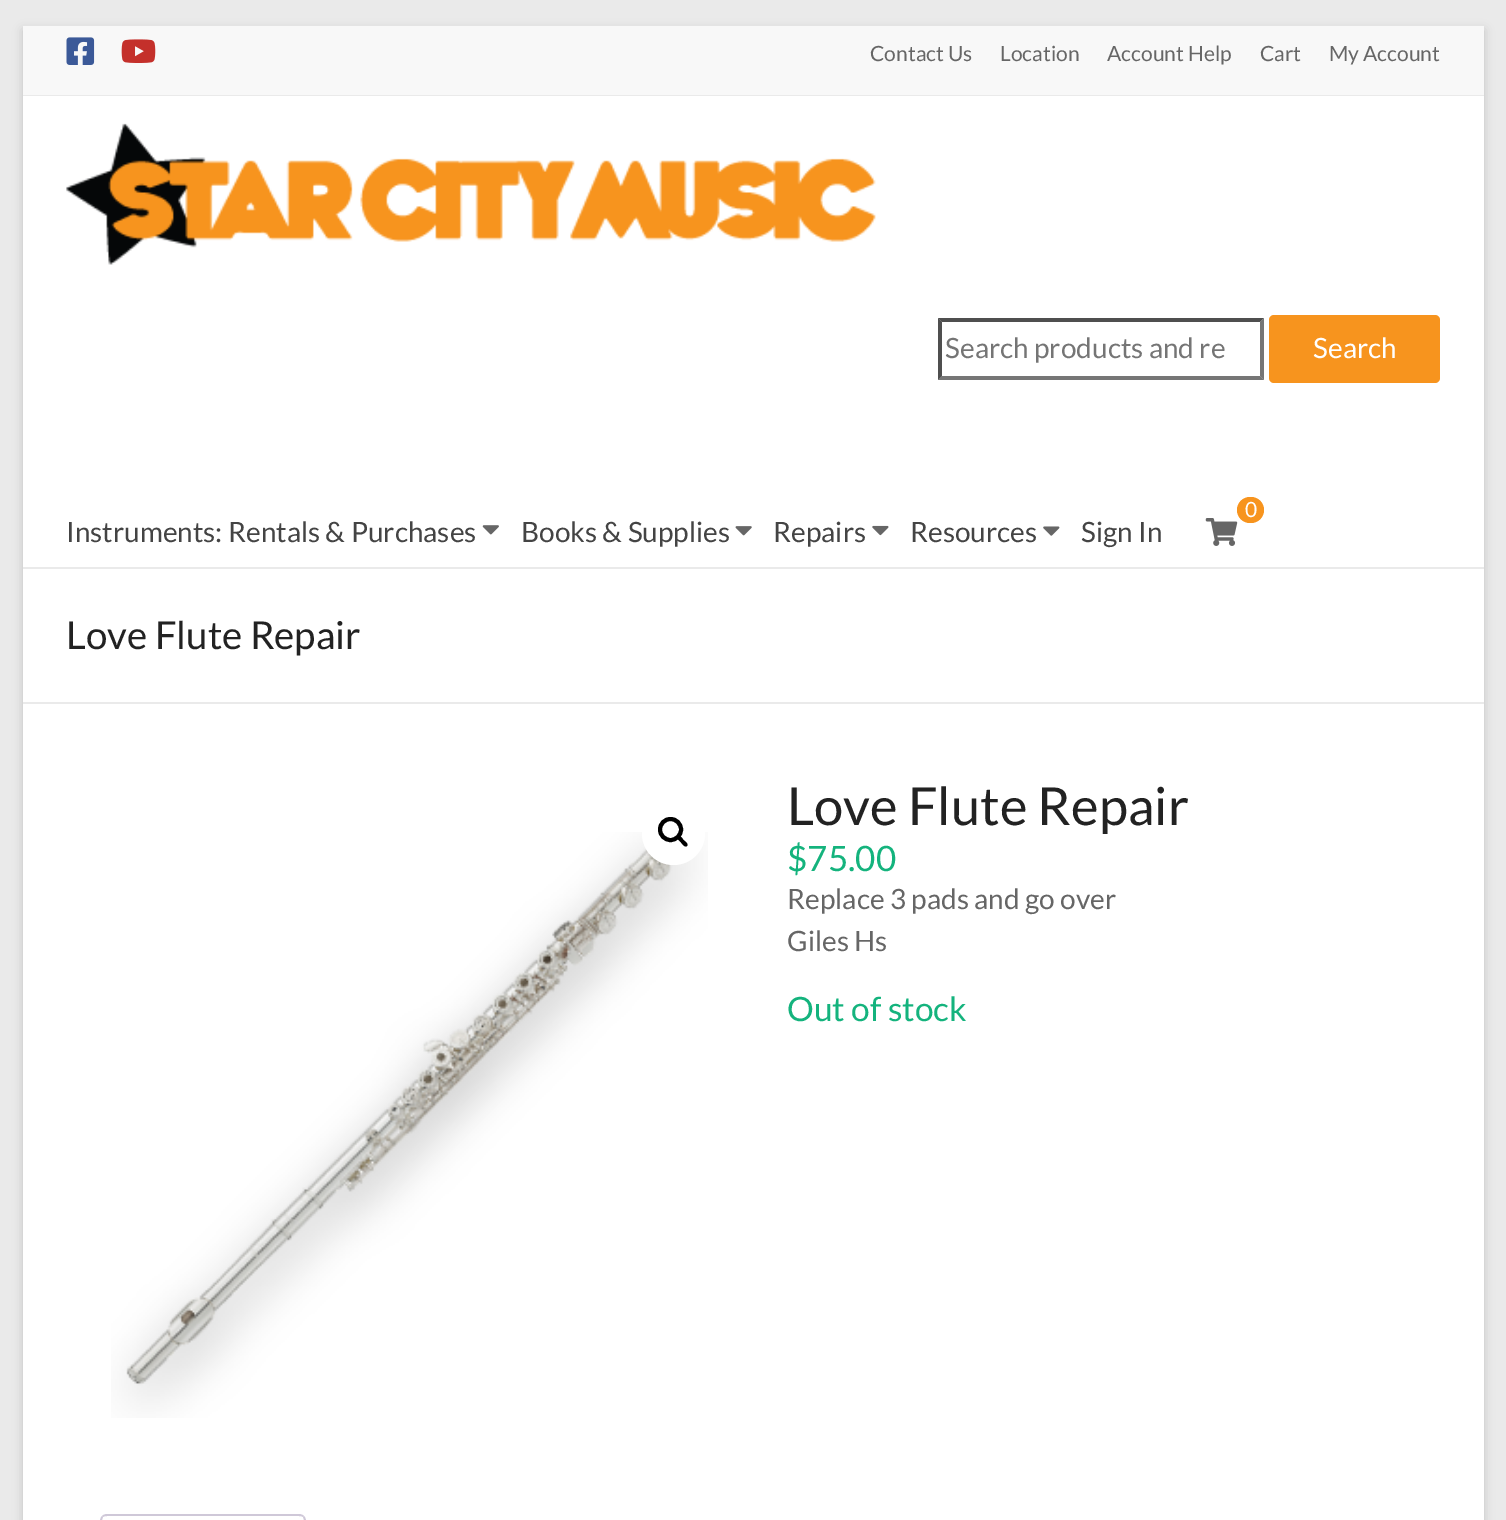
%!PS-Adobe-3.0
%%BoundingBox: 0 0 1506 1520
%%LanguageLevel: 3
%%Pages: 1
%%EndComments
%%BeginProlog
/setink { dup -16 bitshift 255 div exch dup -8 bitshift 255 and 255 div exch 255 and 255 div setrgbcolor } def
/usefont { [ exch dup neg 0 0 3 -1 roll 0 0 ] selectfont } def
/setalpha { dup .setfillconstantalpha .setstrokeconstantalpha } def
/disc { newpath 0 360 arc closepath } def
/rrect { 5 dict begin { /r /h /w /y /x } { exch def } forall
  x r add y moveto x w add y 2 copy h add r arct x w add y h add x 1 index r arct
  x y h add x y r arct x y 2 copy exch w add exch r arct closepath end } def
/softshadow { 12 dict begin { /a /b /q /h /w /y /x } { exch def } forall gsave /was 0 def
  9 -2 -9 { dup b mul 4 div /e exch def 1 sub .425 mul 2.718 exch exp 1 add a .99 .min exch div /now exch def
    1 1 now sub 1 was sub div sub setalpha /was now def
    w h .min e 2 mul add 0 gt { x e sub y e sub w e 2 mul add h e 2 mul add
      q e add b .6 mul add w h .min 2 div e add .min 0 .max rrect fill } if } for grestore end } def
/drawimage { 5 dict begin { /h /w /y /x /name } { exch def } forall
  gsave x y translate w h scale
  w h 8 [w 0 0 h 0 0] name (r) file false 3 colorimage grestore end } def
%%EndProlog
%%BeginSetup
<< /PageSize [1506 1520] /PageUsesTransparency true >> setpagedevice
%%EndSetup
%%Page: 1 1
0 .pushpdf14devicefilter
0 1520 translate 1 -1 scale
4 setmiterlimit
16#EAEAEA setink
0 0 1506 1520 rectfill
16#646464 setink
23 30 1461 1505 0 5 0.3 softshadow
[
    [23 569 1461 951 16#FFFFFF]
    [23 26 1461 69 16#F8F8F8]
    [23 95 1461 1 16#EAEAEA]
] { aload pop setink rectfill } forall
(img1.raw) 66 37 29 28 drawimage
(img2.raw) 121 39 35 24 drawimage
/Lato-Regular 21 usefont
16#666666 setink
[
    [(Contact Us) 870 61]
    [(Location) 1000 61]
    [(Account Help) 1107 61]
    [(Cart) 1260 61]
    [(My Account) 1329 61]
] { aload pop moveto show } forall
16#FFFFFF setink
23 96 1461 471 rectfill
16#EAEAEA setink
23 567 1461 2 rectfill
(img3.raw) 66 123 810 142 drawimage
16#4F4F4F setink
938 318 moveto 1264 318 lineto 1260 322 lineto 942 322 lineto closepath fill
16#767676 setink
1264 318 moveto 1264 380 lineto 1260 376 lineto 1260 322 lineto closepath fill
1264 380 moveto 938 380 lineto 942 376 lineto 1260 376 lineto closepath fill
16#4F4F4F setink
938 380 moveto 938 318 lineto 942 322 lineto 942 376 lineto closepath fill
/Lato-Regular 28 usefont
16#757575 setink
945 358 moveto (Search products and re) show
16#F7941E setink
1269 315 171 68 5 rrect fill
16#FFFFFF setink
1313 358 moveto (Search) show
(img4.raw) 1205 518 33 28 drawimage
16#F7941E setink
1237 497 27 26 13 rrect fill
/Lato-Regular 21 usefont
16#FFFFFF setink
1245 517 moveto (0) show
/Lato-Regular 28 usefont
16#444444 setink
66 542 moveto (Instruments: Rentals & Purchases) show
(img5.raw) 482 525 17 10 drawimage
521 542 moveto (Books & Supplies) show
(img6.raw) 735 526 17 10 drawimage
773 542 moveto (Repairs) show
(img7.raw) 872 525 17 11 drawimage
910 542 moveto (Resources) show
(img8.raw) 1043 526 17 10 drawimage
1081 542 moveto (Sign In) show
16#EAEAEA setink
23 702 1461 2 rectfill
/Lato-Regular 38.5 usefont
16#222222 setink
66 649 moveto (Love Flute Repair) show
(img9.raw) 111 832 597 586 drawimage
16#FFFFFF setink
673.5 833.5 31.5 disc fill
16#000000 setink
4 setlinewidth
670.5 829.5 10.5 disc stroke
677.5 836 moveto 679.5 834 682.5 838.5 683.5 840 curveto 684.5 841 689 844 687 846 curveto 685 848 682 843.5 681 842.5 curveto 680 841 675.5 838 677.5 836 curveto closepath fill
/Lato-Regular 52.5 usefont
16#222222 setink
787 825 moveto (Love Flute Repair) show
/Lato-Regular 35 usefont
16#14B37D setink
787 871 moveto ($75.00) show
/Lato-Regular 28 usefont
16#666666 setink
787 909 moveto (Replace 3 pads and go over) show
787 951 moveto (Giles Hs) show
/Lato-Regular 33.5 usefont
16#14B37D setink
787 1021 moveto (Out of stock) show
16#CFC8D8 setink
107 1514 moveto 105 1514 103 1515 102 1516 curveto 103 1517 lineto 104 1516 106 1516 107 1516 curveto 299 1516 lineto 300 1516 302 1516 303 1517 curveto 304 1516 lineto 303 1515 301 1514 299 1514 curveto closepath fill
306 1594 moveto 306 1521 lineto 306 1519 305 1517 304 1516 curveto 303 1517 lineto 304 1520 lineto 304 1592 lineto closepath fill
102 1516 moveto 101 1517 100 1519 100 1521 curveto 100 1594 lineto 102 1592 lineto 102 1520 lineto 103 1517 lineto closepath fill
.poppdf14devicefilter showpage
%%EOF
